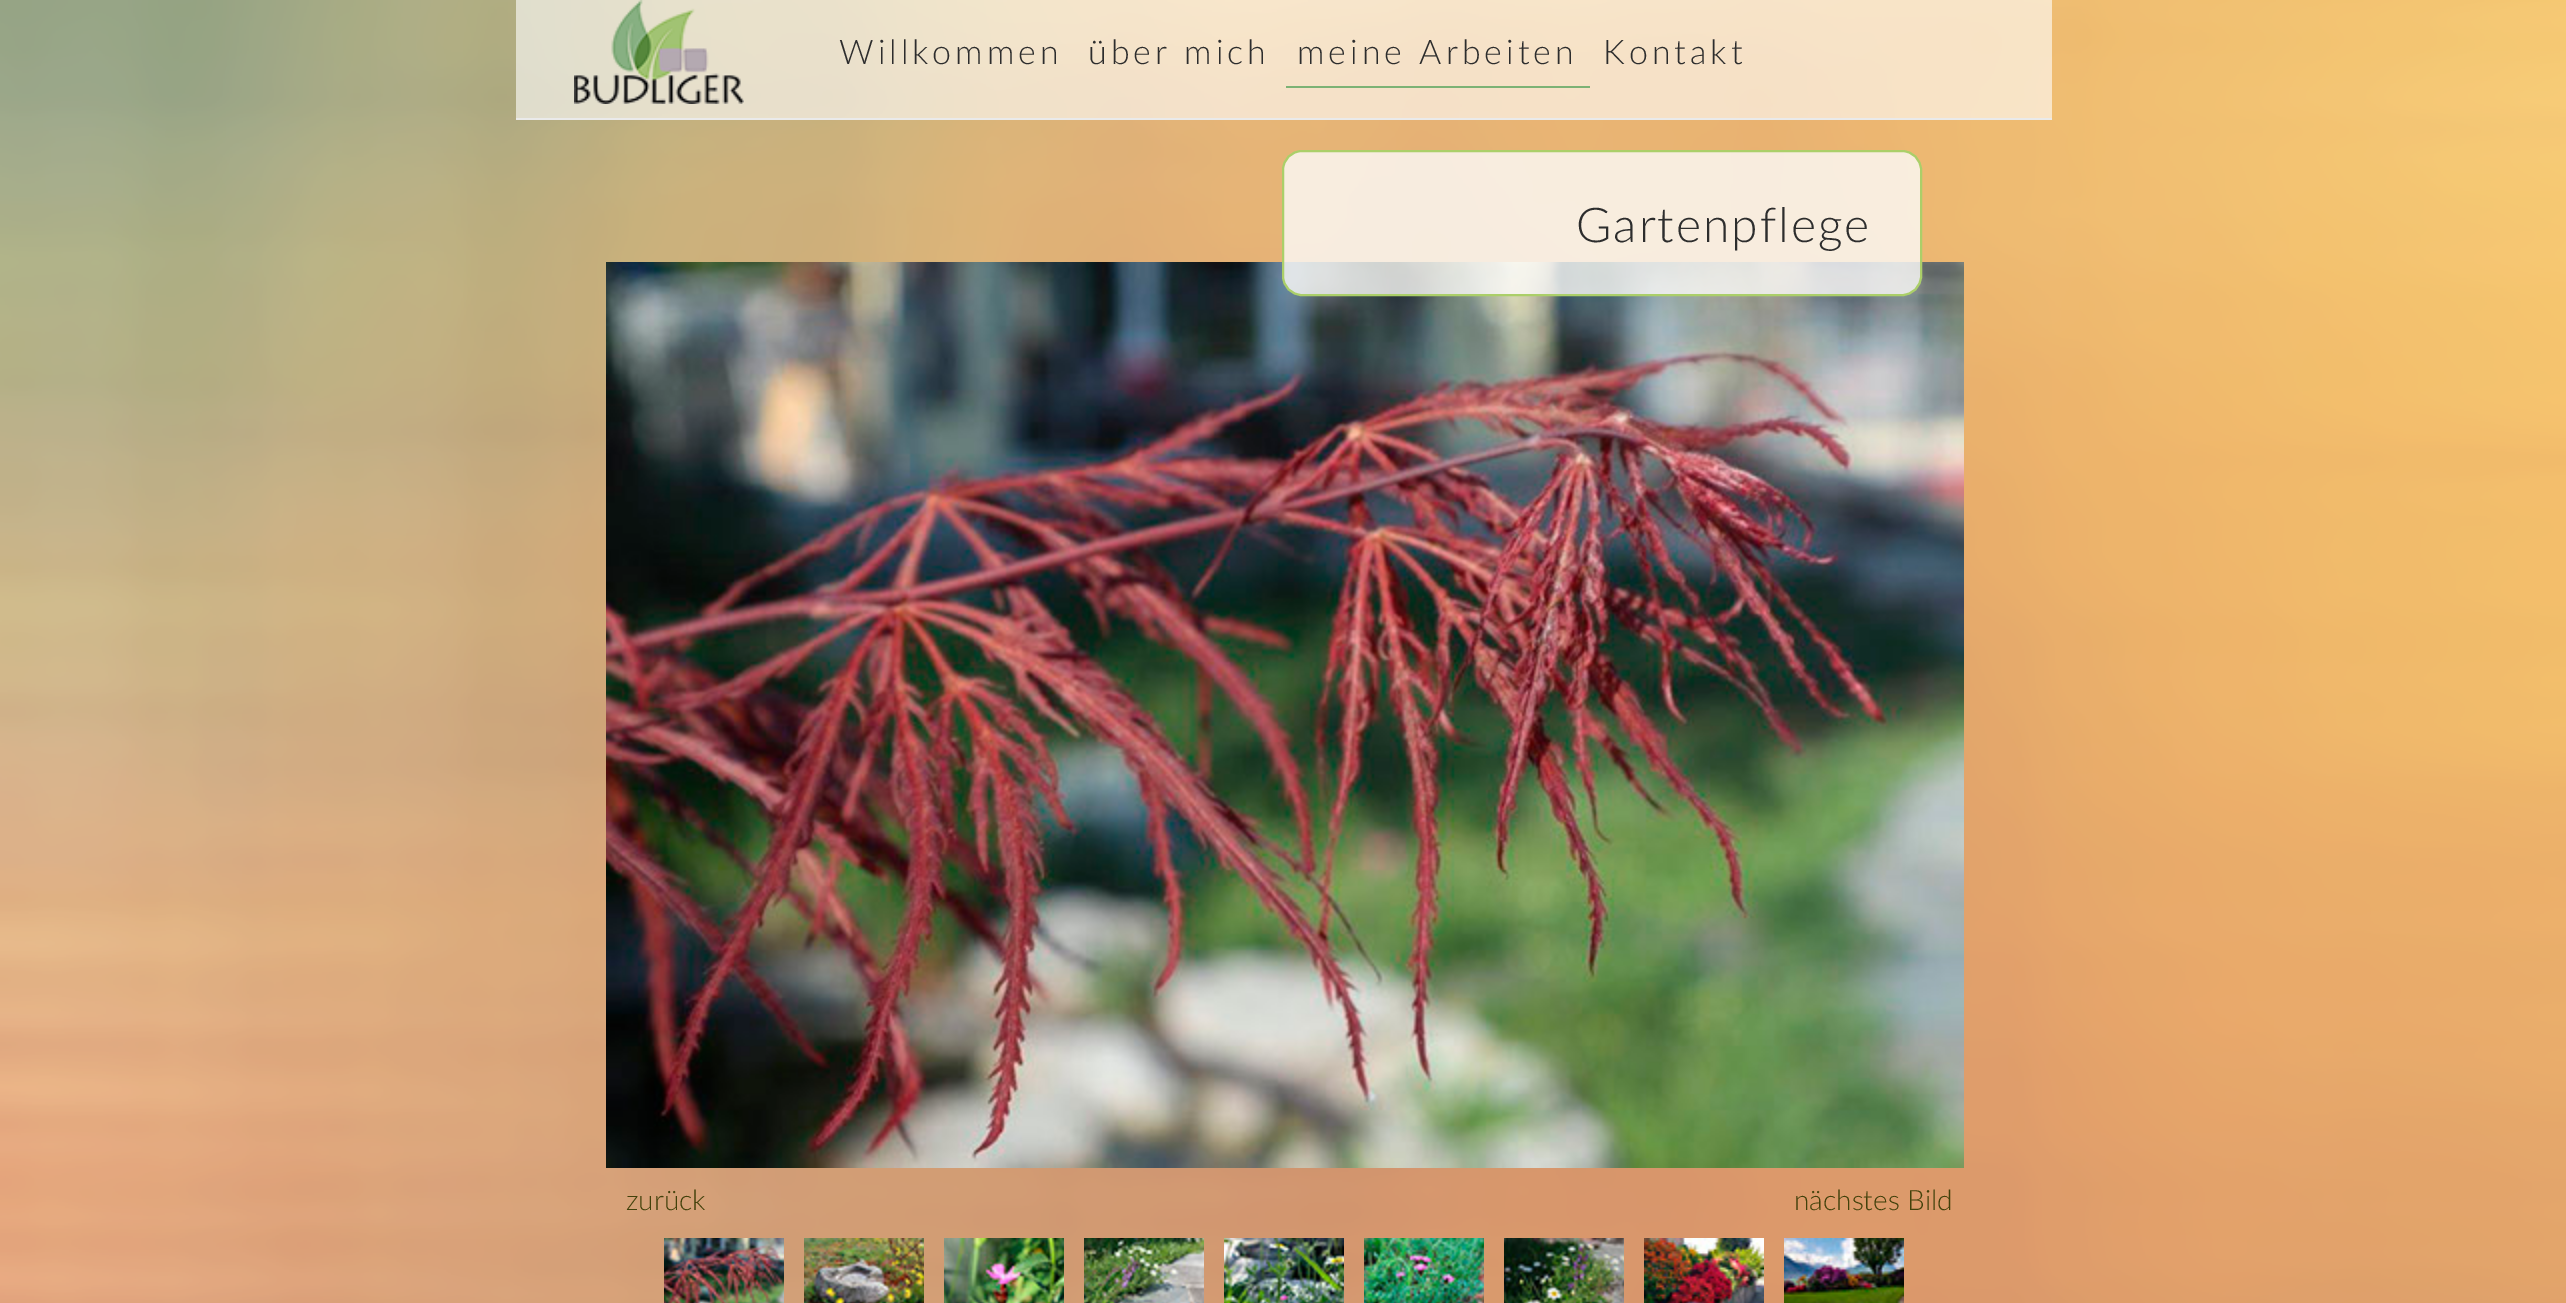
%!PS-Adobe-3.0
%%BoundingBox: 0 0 2566 1303
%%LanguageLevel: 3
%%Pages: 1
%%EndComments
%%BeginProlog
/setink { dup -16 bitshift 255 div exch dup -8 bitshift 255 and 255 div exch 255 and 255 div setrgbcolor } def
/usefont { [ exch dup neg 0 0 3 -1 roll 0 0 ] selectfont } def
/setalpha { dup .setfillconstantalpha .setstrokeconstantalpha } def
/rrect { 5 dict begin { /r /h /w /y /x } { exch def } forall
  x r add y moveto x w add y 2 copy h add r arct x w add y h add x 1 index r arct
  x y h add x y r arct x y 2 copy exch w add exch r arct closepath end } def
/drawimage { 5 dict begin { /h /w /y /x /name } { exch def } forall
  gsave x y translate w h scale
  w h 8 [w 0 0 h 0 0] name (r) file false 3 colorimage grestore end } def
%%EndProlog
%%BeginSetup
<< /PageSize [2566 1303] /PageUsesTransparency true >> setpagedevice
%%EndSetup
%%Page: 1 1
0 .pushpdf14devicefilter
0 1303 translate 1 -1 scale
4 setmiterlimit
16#FFFFFF setink
0 0 2566 1303 rectfill
(img1.raw) 0 0 2566 1303 drawimage
0.6 setalpha
516 0 1536 118 rectfill
1 setalpha
16#EAEAEA setink
516 118 1536 2 rectfill
(img2.raw) 574 0 170 104 drawimage
/Lato-Light 34 usefont
16#2D2D2D setink
839 64 moveto 4 0 (Willkommen) ashow
1088 64 moveto 4 0 (über mich) ashow
16#7CB275 setink
1286 86 304 2 rectfill
16#2D2D2D setink
1297 64 moveto 4 0 (meine Arbeiten) ashow
1603 64 moveto 4 0 (Kontakt) ashow
(img3.raw) 606 262 1358 906 drawimage
0.8 setalpha
16#FCFBF9 setink
1283 151 638 144 19 rrect fill
1 setalpha
16#ABCF69 setink
2 setlinewidth
1283 151 638 144 19 rrect stroke
/Lato-Light 48 usefont
16#2D2D2D setink
1576 242 moveto 2 0 (Gartenpflege) ashow
/Lato-Light 28 usefont
16#42410B setink
626 1210 moveto (zurück) show
1794 1210 moveto (nächstes Bild) show
(img4.raw) 664 1238 120 65 drawimage
(img5.raw) 804 1238 120 65 drawimage
(img6.raw) 944 1238 120 65 drawimage
(img7.raw) 1084 1238 120 65 drawimage
(img8.raw) 1224 1238 120 65 drawimage
(img9.raw) 1364 1238 120 65 drawimage
(img10.raw) 1504 1238 120 65 drawimage
(img11.raw) 1644 1238 120 65 drawimage
(img12.raw) 1784 1238 120 65 drawimage
.poppdf14devicefilter showpage
%%EOF
